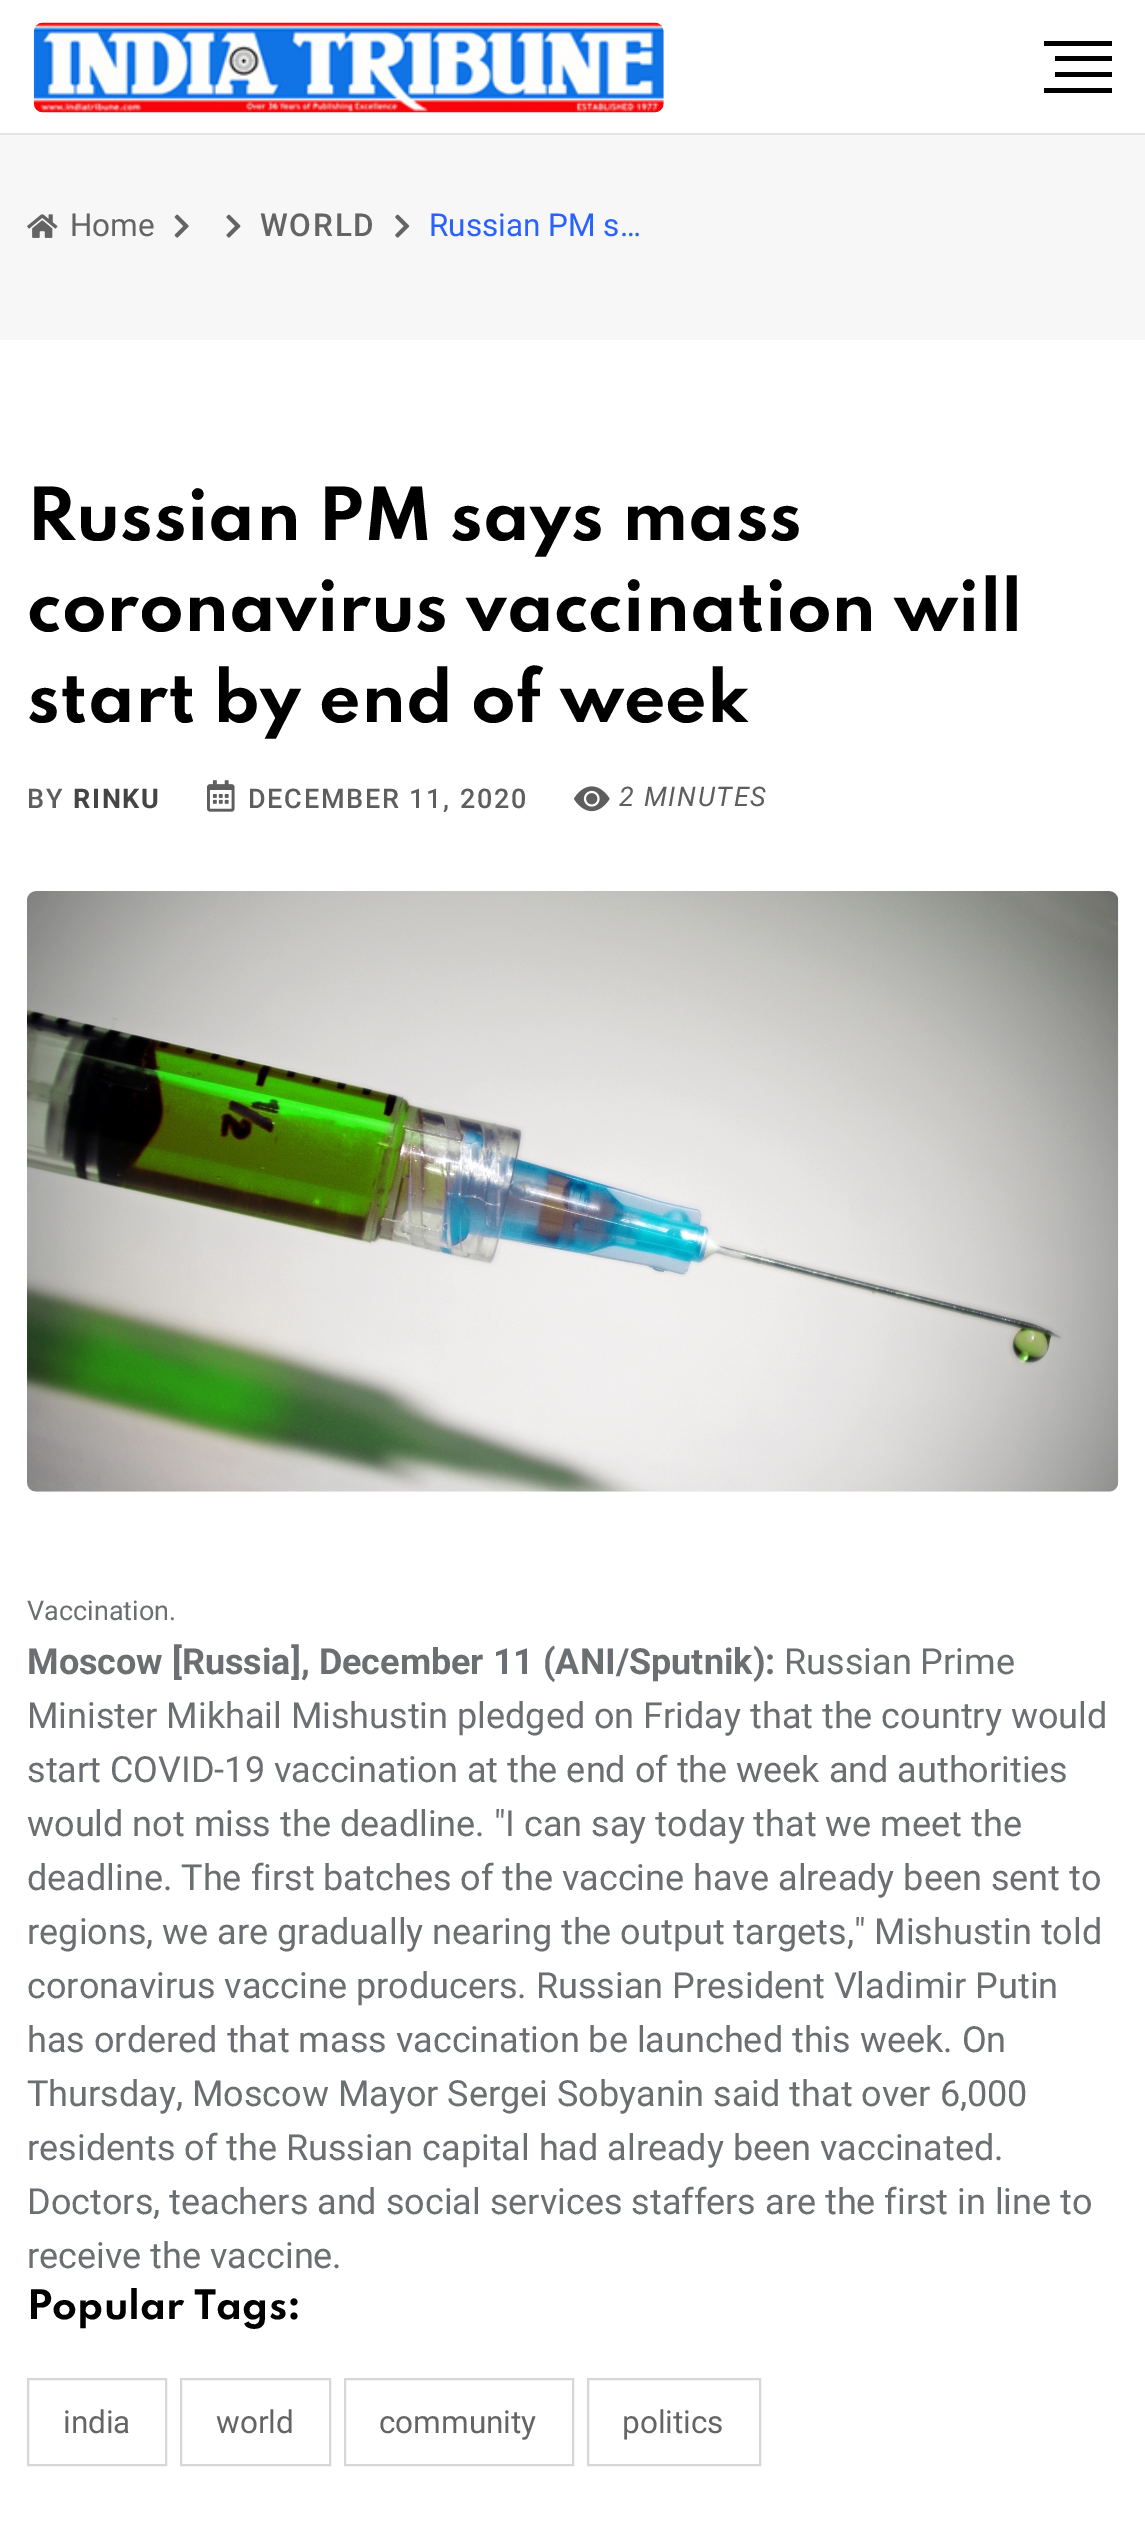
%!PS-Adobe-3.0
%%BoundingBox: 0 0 1145 2524
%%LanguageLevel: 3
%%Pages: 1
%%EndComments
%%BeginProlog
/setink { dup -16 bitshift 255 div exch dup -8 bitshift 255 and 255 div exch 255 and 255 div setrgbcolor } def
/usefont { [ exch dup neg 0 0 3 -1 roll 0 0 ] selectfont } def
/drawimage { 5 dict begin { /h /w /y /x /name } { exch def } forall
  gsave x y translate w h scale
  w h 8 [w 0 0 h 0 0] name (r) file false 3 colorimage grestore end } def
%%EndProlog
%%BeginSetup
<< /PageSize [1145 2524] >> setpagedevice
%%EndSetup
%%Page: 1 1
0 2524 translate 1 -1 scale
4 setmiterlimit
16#FFFFFF setink
0 0 1145 2524 rectfill
16#E5E5E5 setink
0 133 1145 2 rectfill
(img1.raw) 33 22 631 91 drawimage
[
    [1044 41 68 5 16#000000]
    [1055 56 57 5 16#000000]
    [1055 72 57 5 16#000000]
    [1044 88 68 5 16#000000]
    [0 135 1145 205 16#F7F7F7]
] { aload pop setink rectfill } forall
(img2.raw) 27 214 31 24 drawimage
/Roboto-Regular 31.5 usefont
16#646464 setink
70 236 moveto (Home) show
(img3.raw) 174 214 15 24 drawimage
(img4.raw) 226 214 15 24 drawimage
/Roboto-Medium 31.5 usefont
260 236 moveto 1.75 0 (WORLD) ashow
(img5.raw) 395 214 15 24 drawimage
/Roboto-Regular 31.5 usefont
16#2962FF setink
429 236 moveto (Russian PM s…) show
/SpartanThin-Bold 64.9 usefont
16#000000 setink
[
    [(Russian PM says mass) 27 540]
    [(coronavirus vaccination will) 27 631]
    [(start by end of week) 27 722]
] { aload pop moveto show } forall
/Roboto-Medium 27 usefont
16#5E5E5F setink
27 808 moveto 1.75 0 (BY) ashow
/Roboto-Bold 27 usefont
16#444444 setink
73 808 moveto 1.75 0 (RINKU) ashow
(img6.raw) 207 780 28 32 drawimage
/Roboto-Medium 27 usefont
16#5E5E5F setink
248 808 moveto 1.75 0 (DECEMBER 11, 2020) ashow
(img7.raw) 574 786 36 26 drawimage
/Roboto-Italic 27 usefont
619 806 moveto 1.75 0 (2 MINUTES) ashow
(img8.raw) 27 891 1092 601 drawimage
/Roboto-Regular 27 usefont
16#6C6F72 setink
27 1620 moveto (Vaccination.) show
/Roboto-Bold 36 usefont
27 1674 moveto (Moscow [Russia], December 11 \(ANI/Sputnik\):) show
/Roboto-Regular 36 usefont
[
    [(Russian Prime) 784 1674]
    [(Minister Mikhail Mishustin pledged on Friday that the country would) 27 1728]
    [(start COVID-19 vaccination at the end of the week and authorities) 27 1782]
    [(would not miss the deadline. "I can say today that we meet the) 27 1836]
    [(deadline. The first batches of the vaccine have already been sent to) 27 1890]
    [(regions, we are gradually nearing the output targets," Mishustin told) 27 1944]
    [(coronavirus vaccine producers. Russian President Vladimir Putin) 27 1998]
    [(has ordered that mass vaccination be launched this week. On) 27 2052]
    [(Thursday, Moscow Mayor Sergei Sobyanin said that over 6,000) 27 2106]
    [(residents of the Russian capital had already been vaccinated.) 27 2160]
    [(Doctors, teachers and social services staffers are the first in line to) 27 2214]
    [(receive the vaccine.) 27 2268]
] { aload pop moveto show } forall
/SpartanThin-Bold 36 usefont
16#000000 setink
27 2319 moveto (Popular Tags:) show
16#D7D7D7 setink
2 setlinewidth
28 2379 138 86 rectstroke
/Roboto-Regular 31.5 usefont
16#646464 setink
63 2433 moveto (india) show
16#D7D7D7 setink
181 2379 149 86 rectstroke
16#646464 setink
216 2433 moveto (world) show
16#D7D7D7 setink
345 2379 228 86 rectstroke
16#646464 setink
379 2433 moveto (community) show
16#D7D7D7 setink
588 2379 172 86 rectstroke
16#646464 setink
622 2433 moveto (politics) show
showpage
%%EOF
